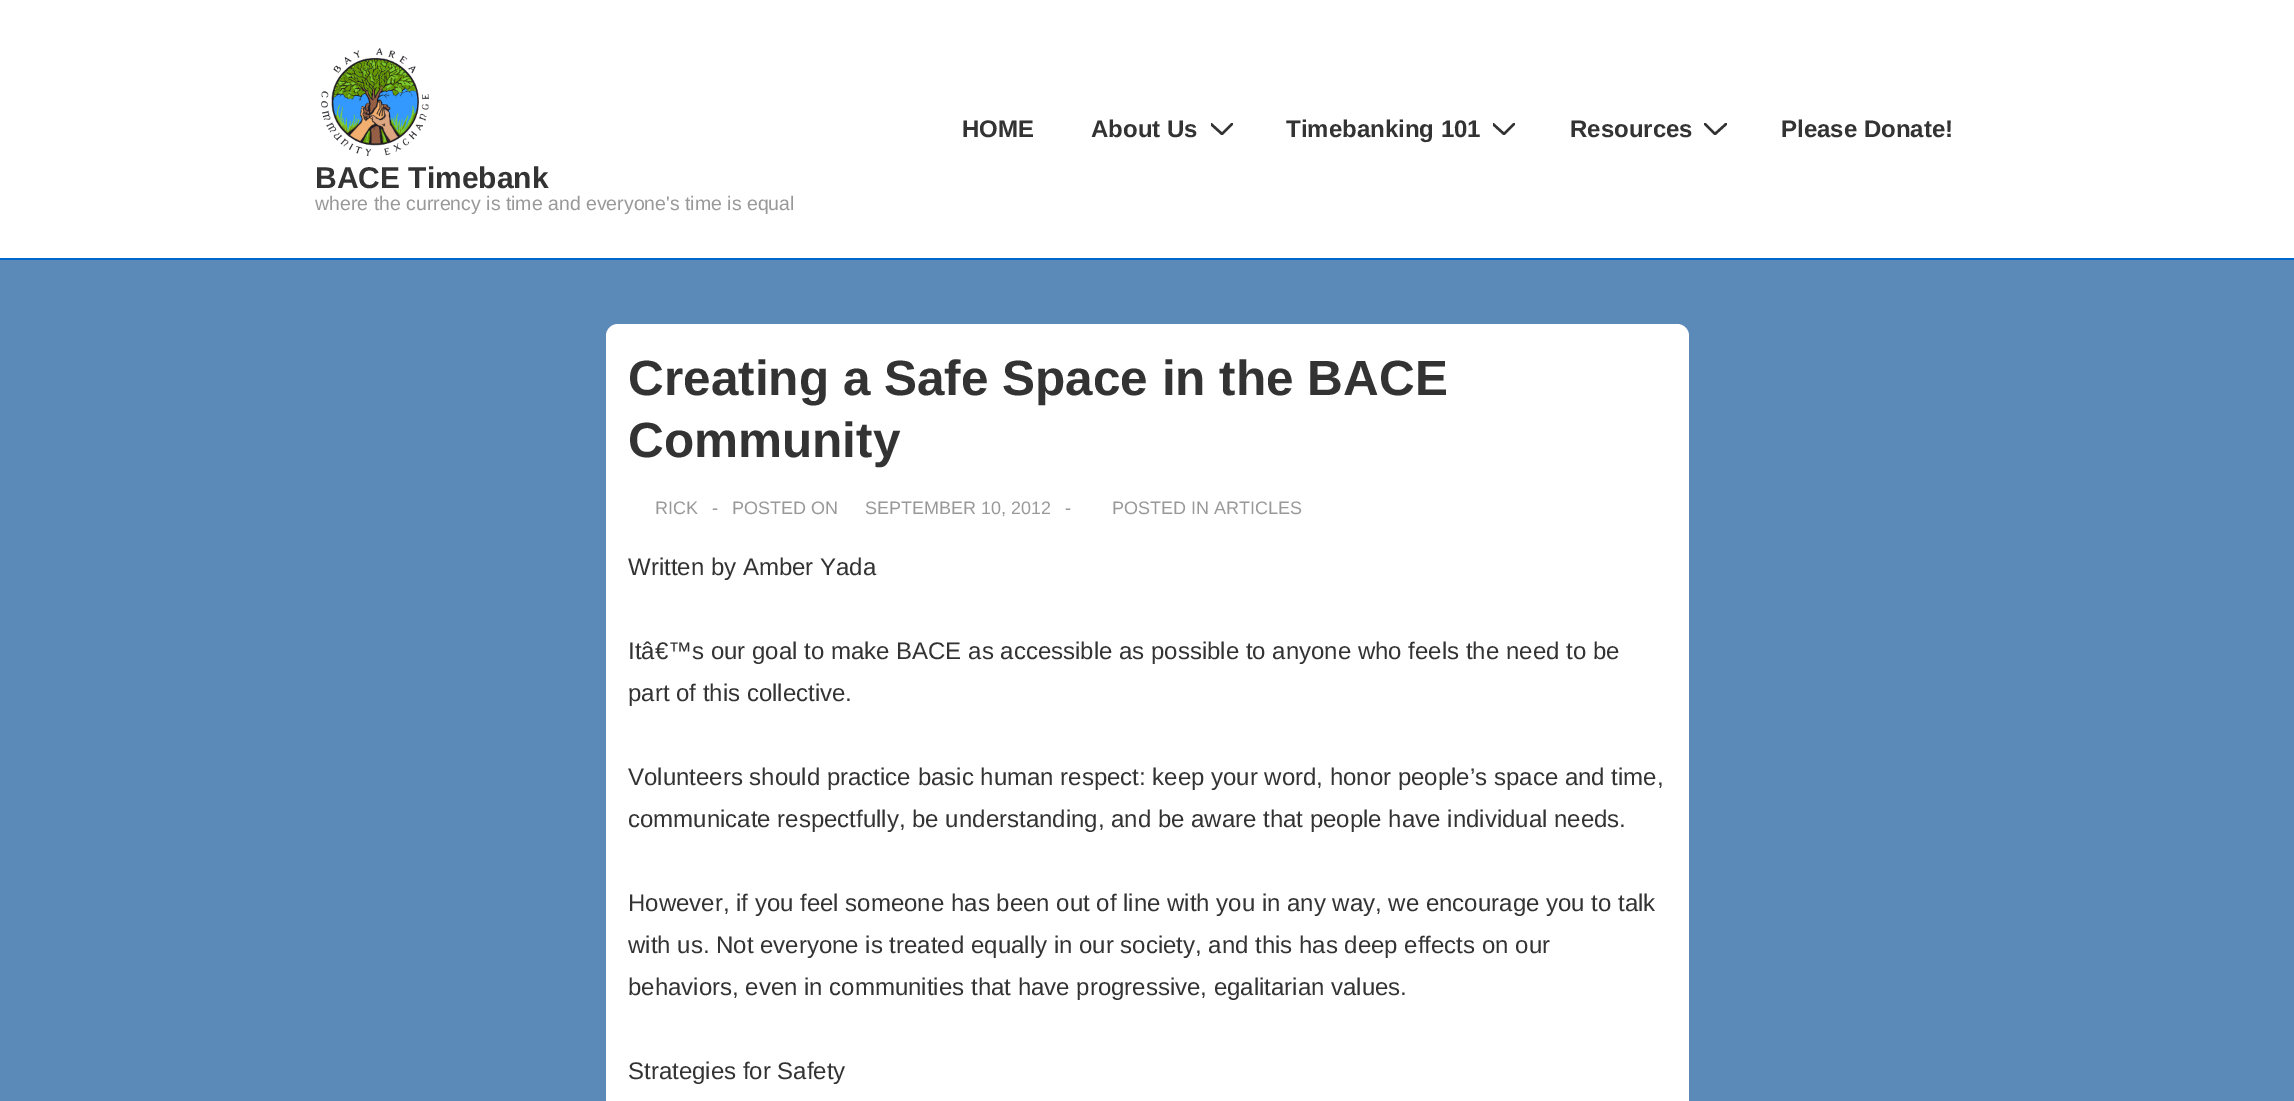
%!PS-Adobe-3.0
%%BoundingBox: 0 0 2294 1101
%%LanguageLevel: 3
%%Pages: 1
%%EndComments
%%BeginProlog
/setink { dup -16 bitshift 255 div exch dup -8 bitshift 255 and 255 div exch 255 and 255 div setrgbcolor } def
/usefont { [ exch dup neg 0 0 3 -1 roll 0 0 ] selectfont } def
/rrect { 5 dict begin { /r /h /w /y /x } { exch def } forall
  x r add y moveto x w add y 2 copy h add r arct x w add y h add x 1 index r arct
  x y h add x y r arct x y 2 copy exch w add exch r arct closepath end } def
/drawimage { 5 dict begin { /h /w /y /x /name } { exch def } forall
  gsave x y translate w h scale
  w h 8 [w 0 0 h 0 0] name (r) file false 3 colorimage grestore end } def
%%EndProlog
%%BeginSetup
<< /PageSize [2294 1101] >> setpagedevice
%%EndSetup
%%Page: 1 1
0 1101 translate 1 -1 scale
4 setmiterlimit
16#5C8AB8 setink
0 0 2294 1101 rectfill
16#FFFFFF setink
0 0 2294 258 rectfill
16#0066CC setink
0 258 2294 2 rectfill
/LiberationSans-Bold 24 usefont
16#333333 setink
962 137 moveto (HOME) show
1091 137 moveto (About Us) show
gsave
1211 123 22 12 rectclip
2.4 setlinewidth
1 setlinecap
1211 124 moveto 1222 134 lineto 1232 124 lineto stroke
grestore
1286 137 moveto (Timebanking 101) show
gsave
1493 123 22 12 rectclip
2.4 setlinewidth
1 setlinecap
1493 124 moveto 1504 134 lineto 1514 124 lineto stroke
grestore
1570 137 moveto (Resources) show
gsave
1704 123 23 12 rectclip
2.4 setlinewidth
1 setlinecap
1705 124 moveto 1715 134 lineto 1726 124 lineto stroke
grestore
1781 137 moveto (Please Donate!) show
(img1.raw) 321 48 108 108 drawimage
/LiberationSans-Bold 30 usefont
315 188 moveto (BACE Timebank) show
/LiberationSans-Regular 19.5 usefont
16#999999 setink
315 210 moveto (where the currency is time and everyone's time is equal) show
16#FFFFFF setink
606 324 1083 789 12 rrect fill
/LiberationSans-Bold 49.5 usefont
16#333333 setink
628 395 moveto (Creating a Safe Space in the BACE) show
628 457 moveto (Community) show
/LiberationSans-Regular 18 usefont
16#999999 setink
[
    [(RICK) 655 514]
    [(-) 712 514]
    [(POSTED ON) 732 514]
    [(SEPTEMBER 10, 2012) 865 514]
    [(-) 1065 514]
    [(POSTED IN ARTICLES) 1112 514]
] { aload pop moveto show } forall
/LiberationSans-Regular 24 usefont
16#333333 setink
[
    [(Written by Amber Yada) 628 575]
    [(Itâ€™s our goal to make BACE as accessible as possible to anyone who feels the need to be) 628 659]
    [(part of this collective.) 628 701]
    [(Volunteers should practice basic human respect: keep your word, honor people’s space and time,) 628 785]
    [(communicate respectfully, be understanding, and be aware that people have individual needs.) 628 827]
    [(However, if you feel someone has been out of line with you in any way, we encourage you to talk) 628 911]
    [(with us. Not everyone is treated equally in our society, and this has deep effects on our) 628 953]
    [(behaviors, even in communities that have progressive, egalitarian values.) 628 995]
    [(Strategies for Safety) 628 1079]
] { aload pop moveto show } forall
showpage
%%EOF
